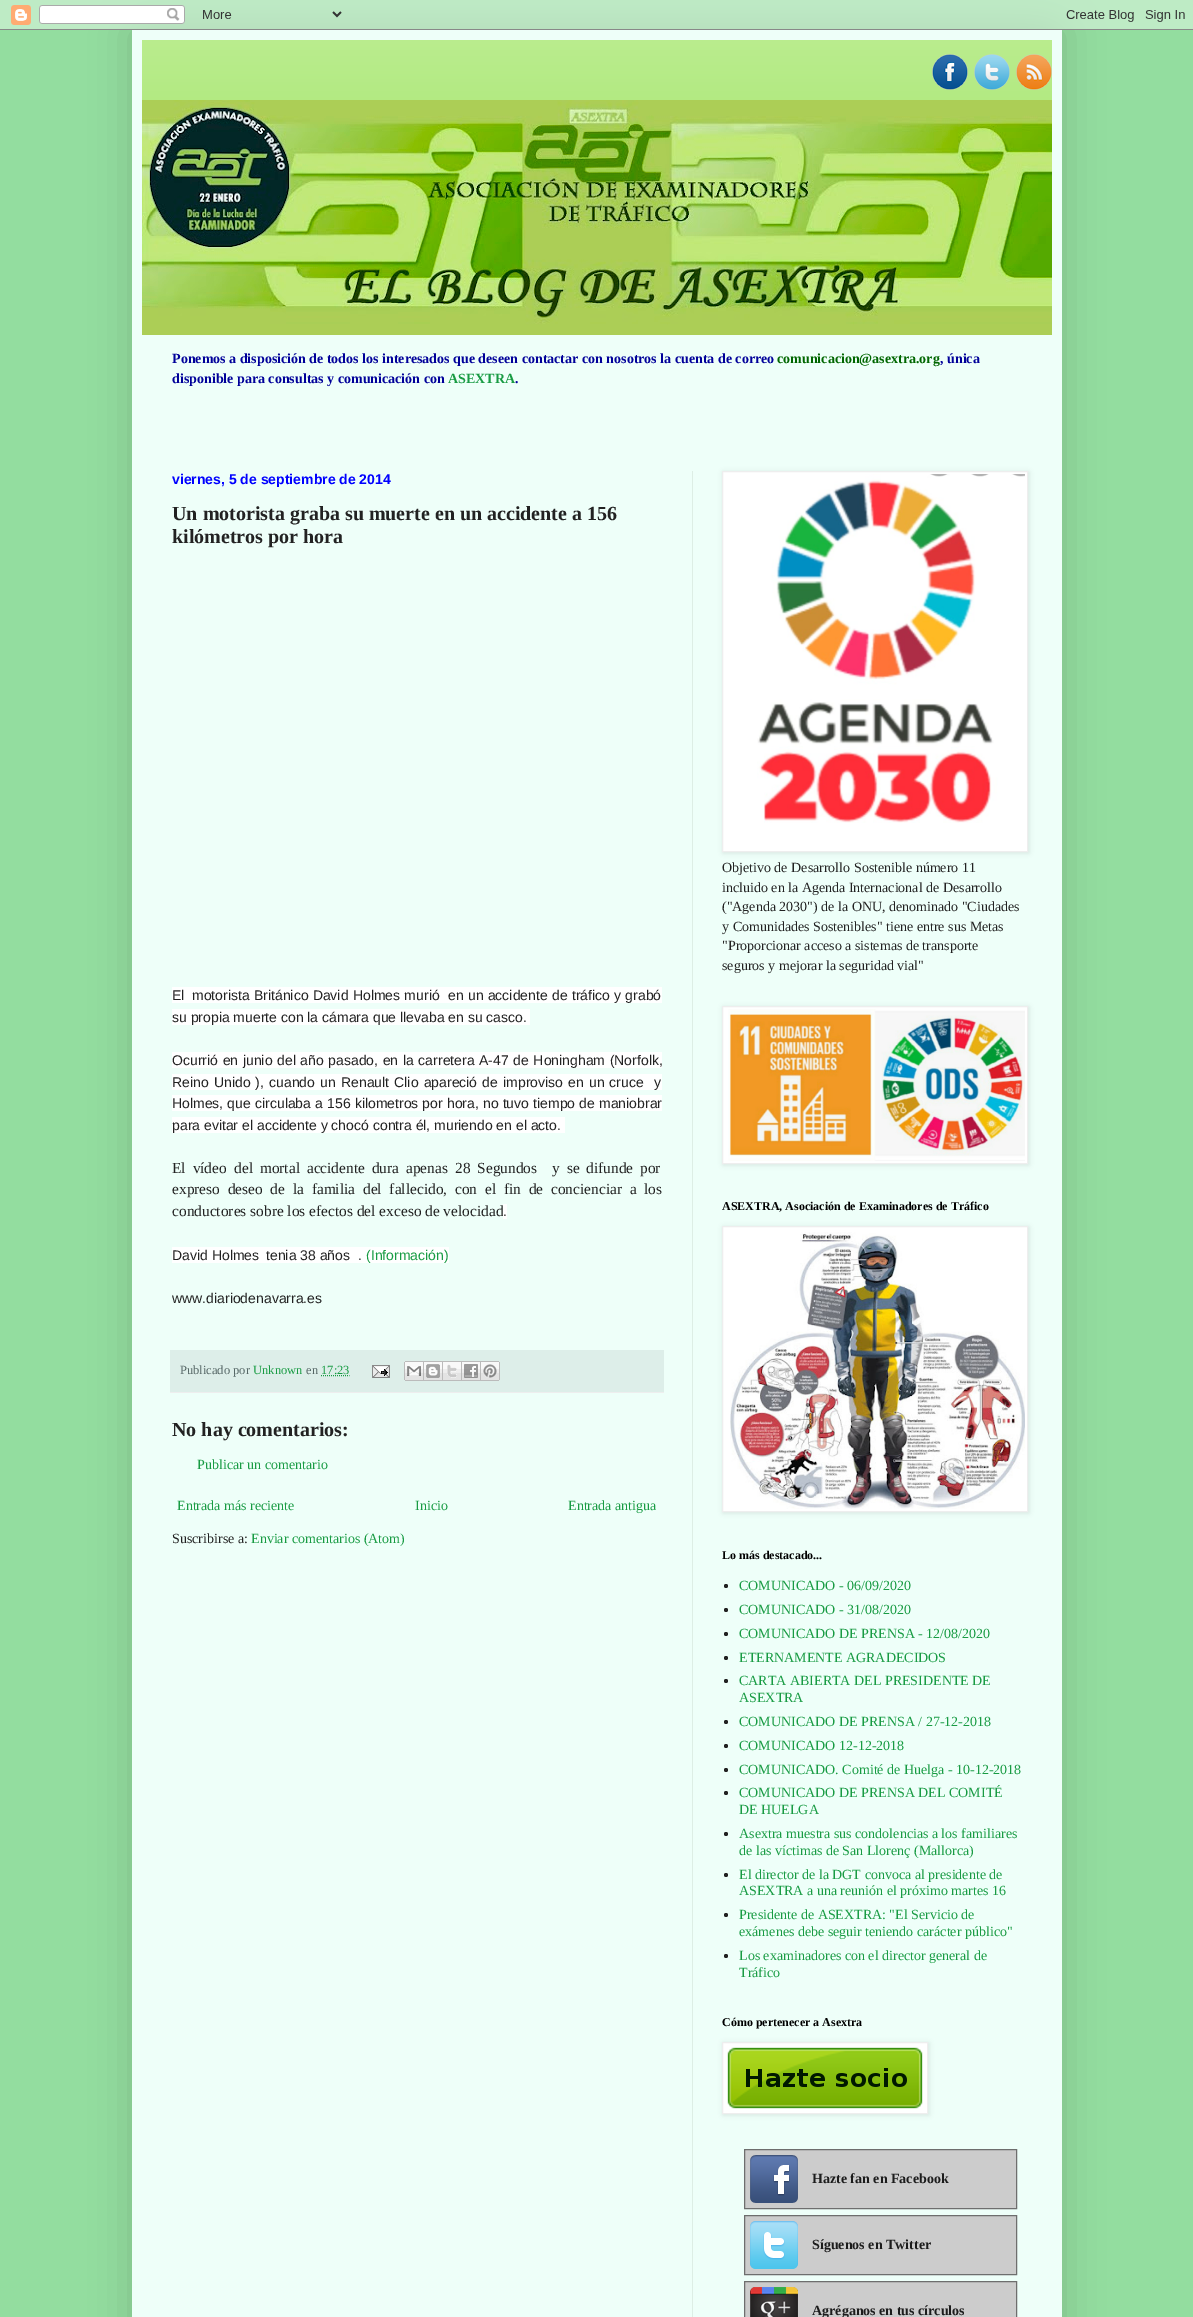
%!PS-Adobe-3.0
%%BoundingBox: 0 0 1193 2317
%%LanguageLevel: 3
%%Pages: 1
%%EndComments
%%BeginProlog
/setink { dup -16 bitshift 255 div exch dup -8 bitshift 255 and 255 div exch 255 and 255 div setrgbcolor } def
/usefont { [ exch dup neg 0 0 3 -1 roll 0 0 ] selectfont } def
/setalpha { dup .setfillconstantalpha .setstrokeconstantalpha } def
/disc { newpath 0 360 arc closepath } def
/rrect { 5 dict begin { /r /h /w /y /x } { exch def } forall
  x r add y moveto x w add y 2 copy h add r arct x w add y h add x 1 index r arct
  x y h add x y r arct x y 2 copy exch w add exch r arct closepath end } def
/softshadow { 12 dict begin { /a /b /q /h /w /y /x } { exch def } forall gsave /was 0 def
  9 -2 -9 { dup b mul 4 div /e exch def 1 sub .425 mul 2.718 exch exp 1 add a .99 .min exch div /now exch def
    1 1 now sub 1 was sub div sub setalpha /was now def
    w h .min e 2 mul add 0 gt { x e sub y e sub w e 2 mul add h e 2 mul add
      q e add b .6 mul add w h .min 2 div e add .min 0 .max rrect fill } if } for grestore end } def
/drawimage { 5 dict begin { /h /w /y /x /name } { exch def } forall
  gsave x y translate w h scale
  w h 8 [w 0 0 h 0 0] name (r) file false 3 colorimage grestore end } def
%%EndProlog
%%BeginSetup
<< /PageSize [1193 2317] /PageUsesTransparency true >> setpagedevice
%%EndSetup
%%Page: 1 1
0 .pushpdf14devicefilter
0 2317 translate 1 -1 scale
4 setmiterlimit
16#93DD9F setink
0 0 1193 2317 rectfill
16#000000 setink
132 30 930 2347 0 20 0.15 softshadow
(img1.raw) 0 0 1193 30 drawimage
16#EEFFF9 setink
132 30 930 2287 rectfill
16#A8E771 setink
142 40 910 60 rectfill
(img2.raw) 142 40 910 60 drawimage
(img3.raw) 932 54 36 36 drawimage
(img4.raw) 974 54 36 36 drawimage
(img5.raw) 1016 54 36 36 drawimage
(img6.raw) 142 100 910 235 drawimage
/LiberationSerif-Bold 14 usefont
16#000099 setink
172 363 moveto (Ponemos a disposición de todos los interesados que deseen contactar con nosotros la cuenta de correo) show
16#006600 setink
777 363 moveto (comunicacion@asextra.org) show
16#000099 setink
940 363 moveto (, única) show
172 383 moveto (disponible para consultas y comunicación con) show
16#189B43 setink
448 383 moveto (ASEXTRA) show
16#000099 setink
515 383 moveto (.) show
16#DDEEE5 setink
692 471 1 1846 rectfill
/LiberationSans-Bold 14 usefont
16#0000FF setink
172 484 moveto (viernes, 5 de septiembre de 2014) show
/LiberationSerif-Bold 20 usefont
16#222222 setink
172 520 moveto (Un motorista graba su muerte en un accidente a 156) show
172 543 moveto (kilómetros por hora) show
16#FFFFFF setink
172 987 490 16 rectfill
/LiberationSans-Regular 14 usefont
16#222222 setink
172 1000 moveto (El) show
192 1000 moveto 0.4 0 32 (motorista Británico David Holmes murió  en un accidente de tráfico y grabó) widthshow
16#FFFFFF setink
172 1009 358 16 rectfill
16#222222 setink
172 1022 moveto (su propia muerte con la cámara que llevaba en su casco.) show
16#FFFFFF setink
172 1052 490 16 rectfill
16#222222 setink
172 1065 moveto 0.75 0 32 (Ocurrió en junio del año pasado, en la carretera A-47 de Honingham \(Norfolk,) widthshow
16#FFFFFF setink
172 1074 490 16 rectfill
16#222222 setink
172 1087 moveto 1.25 0 32 (Reino Unido \), cuando un Renault Clio apareció de improviso en un cruce  y) widthshow
16#FFFFFF setink
172 1095 490 16 rectfill
16#222222 setink
172 1108 moveto 0.25 0 32 (Holmes, que circulaba a 156 kilometros por hora, no tuvo tiempo de maniobrar) widthshow
16#FFFFFF setink
172 1117 393 16 rectfill
16#222222 setink
172 1130 moveto (para evitar el accidente y chocó contra él, muriendo en el acto.) show
/LiberationSerif-Regular 15.4 usefont
172 1173 moveto 3 0 32 (El v) widthshow
200 1173 moveto (ídeo) show
234 1173 moveto 3 0 32 (del mortal accidente dura apenas) widthshow
455 1173 moveto 3 0 32 (28 Segundos) widthshow
552 1173 moveto 3 0 32 (y se difunde por) widthshow
172 1194 moveto 3.9 0 32 (expreso deseo de la familia del fallecido, con el fin de concienciar a los) widthshow
172 1216 moveto (conductores sobre los efectos del exceso de velocidad) show
16#FFFFFF setink
503 1204 4 15 rectfill
/LiberationSans-Regular 14 usefont
16#222222 setink
503 1216 moveto (.) show
16#FFFFFF setink
172 1247 277 16 rectfill
16#222222 setink
[
    [(David Holmes) 172 1260]
    [(tenia 38 años) 266 1260]
    [(.) 358 1260]
] { aload pop moveto show } forall
16#189B43 setink
366 1260 moveto (\(Información\)) show
16#222222 setink
172 1303 moveto (www.diariodenavarra.es) show
16#DDEEE9 setink
170 1350 494 42 rectfill
16#EEEEEE setink
170 1392 494 1 rectfill
/LiberationSerif-Regular 12.5 usefont
16#556665 setink
180 1374 moveto (Publicado por) show
16#189B43 setink
253 1374 moveto (Unknown) show
16#556665 setink
306 1374 moveto (en) show
16#189B43 setink
[1 1] 0 setdash
321 1375.5 moveto 349.5 1375.5 lineto stroke
321 1374 moveto (17:23) show
(img7.raw) 372 1365 18 13 drawimage
(img8.raw) 404 1361 20 20 drawimage
(img9.raw) 424 1361 19 20 drawimage
(img10.raw) 443 1361 19 20 drawimage
(img11.raw) 462 1361 19 20 drawimage
(img12.raw) 481 1361 19 20 drawimage
/LiberationSerif-Bold 20 usefont
16#222222 setink
172 1436 moveto (No hay comentarios:) show
/LiberationSerif-Regular 14 usefont
16#189B43 setink
[
    [(Publicar un comentario) 197 1469]
    [(Entrada más reciente) 177 1510]
    [(Inicio) 415 1510]
    [(Entrada antigua) 568 1510]
] { aload pop moveto show } forall
16#222222 setink
172 1543 moveto (Suscribirse a:) show
16#189B43 setink
251 1543 moveto (Enviar comentarios \(Atom\)) show
16#000000 setink
723 472 306 381 0 2.5 0.1 softshadow
16#FFFFFF setink
722.5 471.5 moveto 1027.5 471.5 lineto 1027.5 851.5 lineto 722.5 851.5 lineto closepath gsave fill grestore
16#EEEEEE setink
[] 0 setdash
stroke
(img13.raw) 757 474 268 349 drawimage
16#222222 setink
[
    [(Objetivo de Desarrollo Sostenible número 11) 722 872]
    [(incluido en la Agenda Internacional de Desarrollo) 722 892]
    [(\("Agenda 2030"\) de la ONU, denominado "Ciudades) 722 911]
    [(y Comunidades Sostenibles" tiene entre sus Metas) 722 931]
    [("Proporcionar acceso a sistemas de transporte) 722 950]
    [(seguros y mejorar la seguridad vial") 722 970]
] { aload pop moveto show } forall
16#000000 setink
723 1007 306 158 0 2.5 0.1 softshadow
16#FFFFFF setink
722.5 1006.5 moveto 1027.5 1006.5 lineto 1027.5 1163.5 lineto 722.5 1163.5 lineto closepath gsave fill grestore
16#EEEEEE setink
stroke
(img14.raw) 728 1009 297 152 drawimage
/LiberationSerif-Bold 12 usefont
16#000000 setink
722 1210 moveto (ASEXTRA, Asociación de Examinadores de Tráfico) show
723 1227 306 286 0 2.5 0.1 softshadow
16#FFFFFF setink
722.5 1226.5 moveto 1027.5 1226.5 lineto 1027.5 1511.5 lineto 722.5 1511.5 lineto closepath gsave fill grestore
16#EEEEEE setink
stroke
(img15.raw) 730 1232 295 277 drawimage
16#000000 setink
722 1559 moveto (Lo más destacado...) show
16#222222 setink
726 1586 2 disc fill
/LiberationSerif-Regular 14 usefont
16#189B43 setink
739 1590 moveto (COMUNICADO - 06/09/2020) show
16#222222 setink
726 1610 2 disc fill
16#189B43 setink
739 1614 moveto (COMUNICADO - 31/08/2020) show
16#222222 setink
726 1634 2 disc fill
16#189B43 setink
739 1638 moveto (COMUNICADO DE PRENSA - 12/08/2020) show
16#222222 setink
726 1658 2 disc fill
16#189B43 setink
739 1662 moveto (ETERNAMENTE AGRADECIDOS) show
16#222222 setink
726 1681 2 disc fill
16#189B43 setink
739 1685 moveto (CARTA ABIERTA DEL PRESIDENTE DE) show
739 1702 moveto (ASEXTRA) show
16#222222 setink
726 1722 2 disc fill
16#189B43 setink
739 1726 moveto (COMUNICADO DE PRENSA / 27-12-2018) show
16#222222 setink
726 1746 2 disc fill
16#189B43 setink
739 1750 moveto (COMUNICADO 12-12-2018) show
16#222222 setink
726 1770 2 disc fill
16#189B43 setink
739 1774 moveto (COMUNICADO. Comité de Huelga - 10-12-2018) show
16#222222 setink
726 1793 2 disc fill
16#189B43 setink
739 1797 moveto (COMUNICADO DE PRENSA DEL COMITÉ) show
739 1814 moveto (DE HUELGA) show
16#222222 setink
726 1834 2 disc fill
16#189B43 setink
739 1838 moveto (Asextra muestra sus condolencias a los familiares) show
739 1855 moveto (de las víctimas de San Llorenç \(Mallorca\)) show
16#222222 setink
726 1875 2 disc fill
16#189B43 setink
739 1879 moveto (El director de la DGT convoca al presidente de) show
739 1895 moveto (ASEXTRA a una reunión el próximo martes 16) show
16#222222 setink
726 1915 2 disc fill
16#189B43 setink
739 1919 moveto (Presidente de ASEXTRA: "El Servicio de) show
739 1936 moveto (exámenes debe seguir teniendo carácter público") show
16#222222 setink
726 1956 2 disc fill
16#189B43 setink
739 1960 moveto (Los examinadores con el director general de) show
739 1977 moveto (Tráfico) show
/LiberationSerif-Bold 12 usefont
16#000000 setink
722 2026 moveto (Cómo pertenecer a Asextra) show
723 2043 206 72 0 2.5 0.1 softshadow
16#FFFFFF setink
722.5 2042.5 moveto 927.5 2042.5 lineto 927.5 2113.5 lineto 722.5 2113.5 lineto closepath gsave fill grestore
16#EEEEEE setink
stroke
(img16.raw) 727 2047 196 62 drawimage
16#CCCCCC setink
744.5 2149.5 moveto 1016.5 2149.5 lineto 1016.5 2208.5 lineto 744.5 2208.5 lineto closepath gsave fill grestore
16#6E6E6E setink
stroke
(img17.raw) 750 2155 48 48 drawimage
/LiberationSerif-Bold 14 usefont
16#1C1C1C setink
812 2183 moveto (Hazte fan en Facebook) show
16#CCCCCC setink
744.5 2215.5 moveto 1016.5 2215.5 lineto 1016.5 2274.5 lineto 744.5 2274.5 lineto closepath gsave fill grestore
16#6E6E6E setink
stroke
(img18.raw) 750 2221 48 48 drawimage
16#1C1C1C setink
812 2249 moveto (Síguenos en Twitter) show
16#CCCCCC setink
744.5 2281.5 moveto 1016.5 2281.5 lineto 1016.5 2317.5 lineto 744.5 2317.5 lineto closepath gsave fill grestore
16#6E6E6E setink
stroke
(img19.raw) 750 2287 48 30 drawimage
16#1C1C1C setink
812 2315 moveto (Agréganos en tus círculos) show
.poppdf14devicefilter showpage
%%EOF
